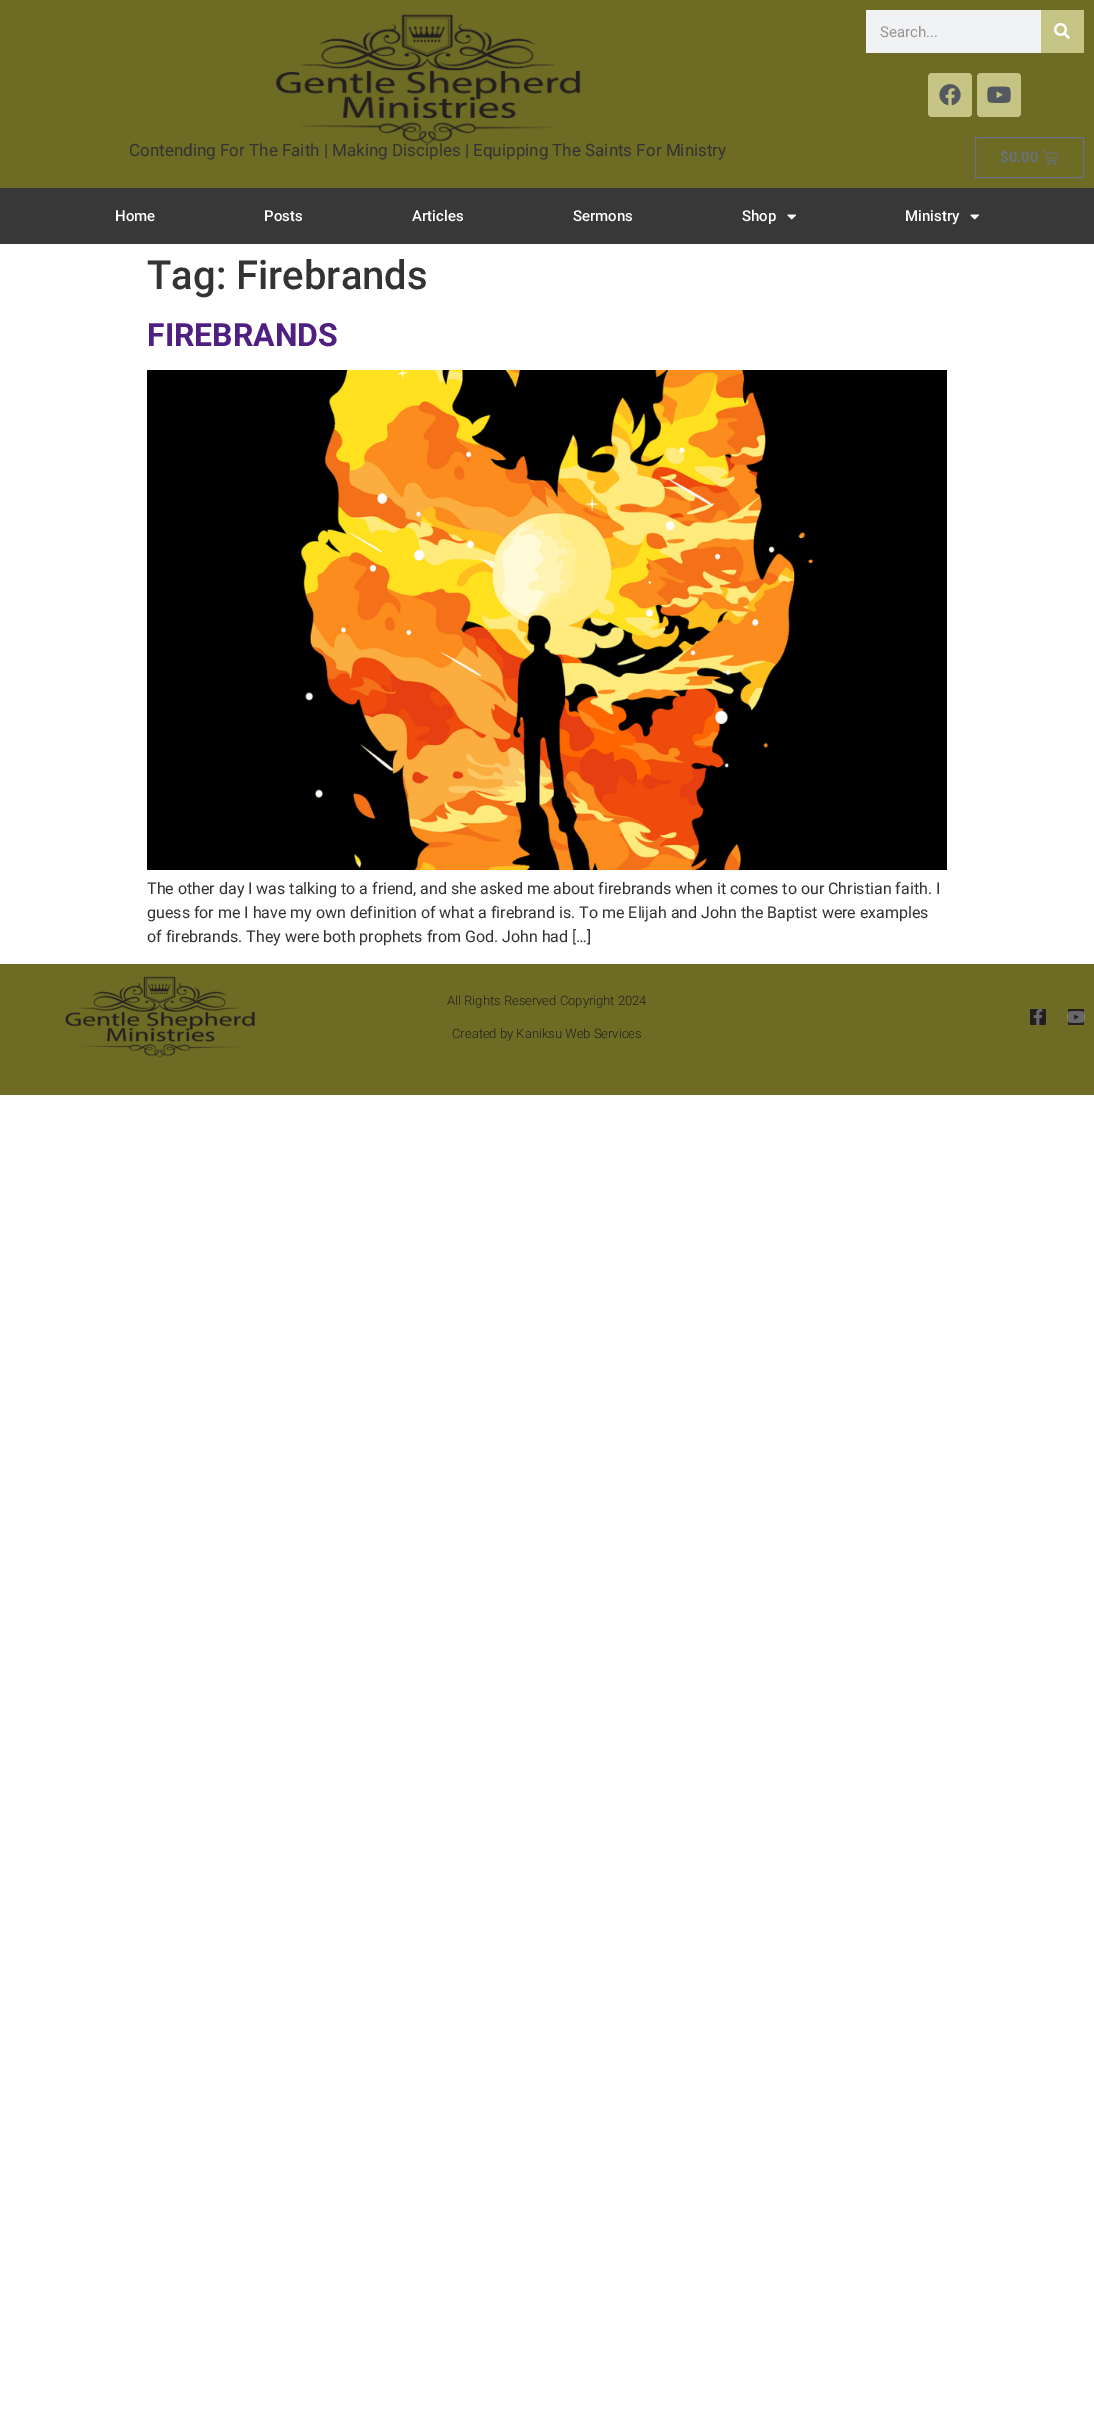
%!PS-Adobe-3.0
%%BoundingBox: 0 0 1094 2417
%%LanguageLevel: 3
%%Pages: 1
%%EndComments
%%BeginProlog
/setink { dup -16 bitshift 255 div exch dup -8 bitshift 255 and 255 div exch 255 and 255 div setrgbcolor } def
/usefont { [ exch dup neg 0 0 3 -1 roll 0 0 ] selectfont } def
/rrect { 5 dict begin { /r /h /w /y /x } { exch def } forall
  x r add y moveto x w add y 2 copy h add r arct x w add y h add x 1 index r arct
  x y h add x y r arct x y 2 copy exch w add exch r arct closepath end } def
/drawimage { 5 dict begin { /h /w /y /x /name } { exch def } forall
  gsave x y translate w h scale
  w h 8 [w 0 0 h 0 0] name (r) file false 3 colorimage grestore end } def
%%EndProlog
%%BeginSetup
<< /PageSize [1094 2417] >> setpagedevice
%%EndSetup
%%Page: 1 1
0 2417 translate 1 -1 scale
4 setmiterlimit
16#FFFFFF setink
0 0 1094 2417 rectfill
16#6D6B24 setink
0 0 1094 188 rectfill
(img1.raw) 275 14 306 131 drawimage
/Roboto-Regular 17 usefont
16#333333 setink
129 156 moveto (Contending For The Faith | Making Disciples | Equipping The Saints For Ministry) show
16#F1F2F3 setink
866 10 175 43 rectfill
/Roboto-Regular 15 usefont
16#969697 setink
880 37 moveto (Search...) show
16#C6C485 setink
1041 10 43 43 rectfill
(img2.raw) 1054 23 16 16 drawimage
928 73 44 44 4 rrect fill
(img3.raw) 939 84 22 22 drawimage
977 73 44 44 4 rrect fill
(img4.raw) 987 86 24 17 drawimage
16#69727D setink
975.5 137.5 108 40 rectstroke
/Roboto-SemiBold 15 usefont
1000 162 moveto ($0.00) show
(img5.raw) 1043 150 15 15 drawimage
16#383838 setink
0 188 1094 56 rectfill
/Roboto-Medium 15 usefont
16#FFFFFF setink
[
    [(Home) 115 221]
    [(Posts) 264 221]
    [(Articles) 412 221]
    [(Sermons) 573 221]
    [(Shop) 742 221]
] { aload pop moveto show } forall
(img6.raw) 787 214 9 6 drawimage
905 221 moveto (Ministry) show
(img6.raw) 970 214 9 6 drawimage
/Roboto-Medium 40 usefont
16#333333 setink
147 289 moveto (Tag: Firebrands) show
/Roboto-Bold 32 usefont
16#4F1F82 setink
147 346 moveto (FIREBRANDS) show
(img7.raw) 147 370 800 500 drawimage
/Roboto-Regular 16 usefont
16#333333 setink
[
    [(The other day I was talking to a friend, and she asked me about firebrands when it comes to our Christian faith. I) 147 894]
    [(guess for me I have my own definition of what a firebrand is. To me Elijah and John the Baptist were examples) 147 918]
    [(of firebrands. They were both prophets from God. John had […]) 147 942]
] { aload pop moveto show } forall
16#6D6B24 setink
0 964 1094 131 rectfill
(img8.raw) 65 976 190 82 drawimage
/Roboto-Light 13 usefont
16#231F20 setink
447 1005 moveto (All Rights Reserved Copyright 2024) show
452 1038 moveto (Created by Kaniksu Web Services) show
1030 1009 16 16 1.5 rrect fill
(img9.raw) 1033 1009 10 16 drawimage
1068 1009 16 16 1.5 rrect fill
(img10.raw) 1067 1011 18 12 drawimage
showpage
%%EOF
